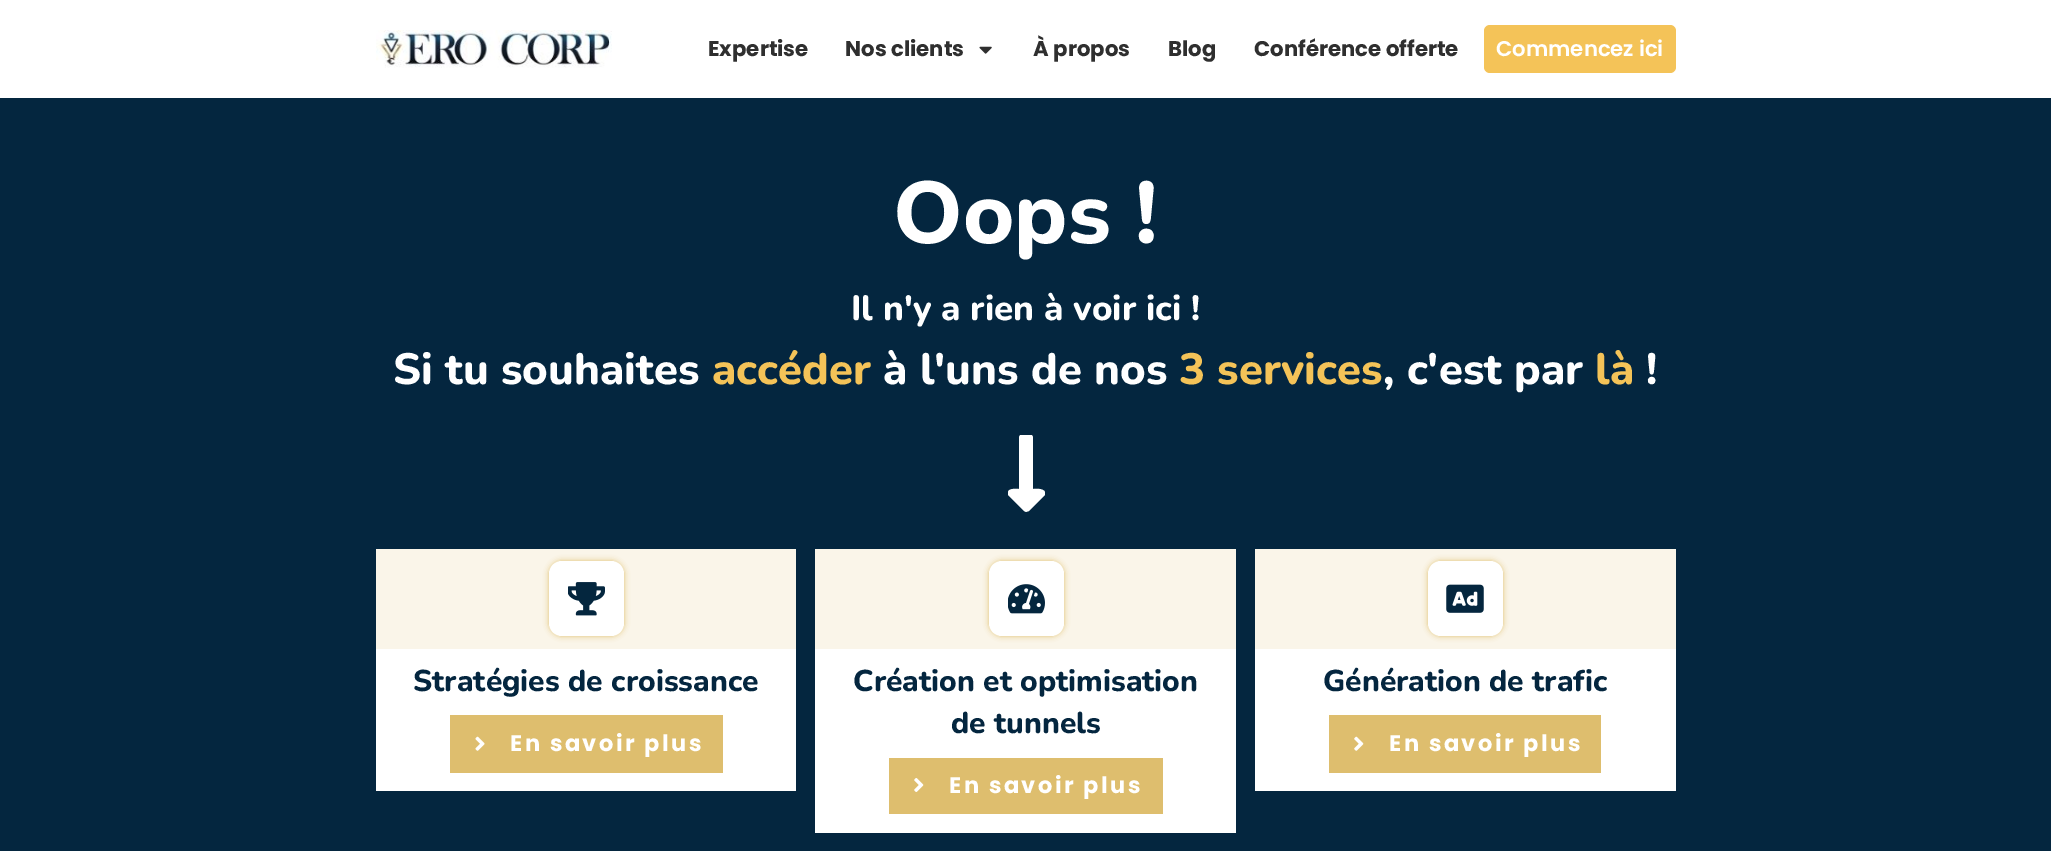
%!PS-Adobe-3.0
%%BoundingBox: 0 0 2051 851
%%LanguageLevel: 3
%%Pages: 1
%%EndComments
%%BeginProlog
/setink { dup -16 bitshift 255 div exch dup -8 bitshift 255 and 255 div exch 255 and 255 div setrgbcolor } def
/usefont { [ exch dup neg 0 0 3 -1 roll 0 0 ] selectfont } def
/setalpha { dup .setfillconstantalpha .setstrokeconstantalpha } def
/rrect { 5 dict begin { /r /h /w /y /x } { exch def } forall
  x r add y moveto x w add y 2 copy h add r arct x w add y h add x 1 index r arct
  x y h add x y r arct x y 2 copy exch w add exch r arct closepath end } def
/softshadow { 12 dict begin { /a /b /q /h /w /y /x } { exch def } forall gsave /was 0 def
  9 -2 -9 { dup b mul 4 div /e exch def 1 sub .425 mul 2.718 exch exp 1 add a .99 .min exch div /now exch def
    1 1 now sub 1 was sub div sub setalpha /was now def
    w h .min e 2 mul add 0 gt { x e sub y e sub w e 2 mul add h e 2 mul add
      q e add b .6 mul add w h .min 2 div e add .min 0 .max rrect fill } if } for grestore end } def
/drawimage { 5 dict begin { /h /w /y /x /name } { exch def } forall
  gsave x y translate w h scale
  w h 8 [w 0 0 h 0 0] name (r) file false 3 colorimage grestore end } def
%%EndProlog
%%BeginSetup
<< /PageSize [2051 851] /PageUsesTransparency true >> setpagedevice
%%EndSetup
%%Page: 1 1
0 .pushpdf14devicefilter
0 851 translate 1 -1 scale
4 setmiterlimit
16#04263F setink
0 0 2051 851 rectfill
16#FFFFFF setink
0 0 2051 98 rectfill
(img1.raw) 376 30 236 38 drawimage
/Poppins-Bold 21.25 usefont
16#2F2F2F setink
708 56 moveto (Expertise) show
845 56 moveto (Nos clients) show
(img2.raw) 979 46 13 8 drawimage
[
    [(À propos) 1033 56]
    [(Blog) 1168 56]
    [(Conférence offerte) 1254 56]
] { aload pop moveto show } forall
16#F4C358 setink
1484 25 192 48 6 rrect fill
/Poppins-SemiBold 21.25 usefont
16#FFFFFF setink
1496 56 moveto (Commencez ici) show
/Nunito-ExtraBold 87.5 usefont
893 243 moveto (Oops !) show
/Nunito-ExtraBold 35 usefont
851 320 moveto (Il n'y a rien à voir ici !) show
/Nunito-ExtraBold 43.75 usefont
393 384 moveto (Si tu souhaites) show
16#F4C358 setink
712 384 moveto (accéder) show
16#FFFFFF setink
883 384 moveto (à l'uns de nos) show
16#F4C358 setink
1179 384 moveto (3 services) show
16#FFFFFF setink
1383 384 moveto (, c'est par) show
16#F4C358 setink
1595 384 moveto (là) show
16#FFFFFF setink
1646 384 moveto (!) show
1033 489 moveto 1033 438 lineto 1033 436 1032 435 1031 435 curveto 1021 435 lineto 1020 435 1019 436 1019 438 curveto 1019 489 lineto 1016 489 1009 488 1008 492 curveto 1008 495 lineto 1024 511 lineto 1026 512 lineto 1029 511 lineto 1045 495 lineto 1045 492 lineto 1043 488 1036 489 1033 489 curveto closepath fill
376 649 420 142 rectfill
16#FAF5E9 setink
376 549 420 100 rectfill
16#DEBE6E setink
549 561 75 75 13 3 1 softshadow
16#FFFFFF setink
549 561 75 75 13 rrect fill
(img3.raw) 568 582 37 34 drawimage
/Nunito-ExtraBold 30 usefont
16#04263F setink
413 691 moveto (Stratégies de croissance) show
16#DEBE6E setink
450 715 273 58 rectfill
(img4.raw) 475 736 10 15 drawimage
/Poppins-Bold 22.5 usefont
16#FFFFFF setink
510 751 moveto 2.5 0 (En savoir plus) ashow
815 649 421 184 rectfill
16#FAF5E9 setink
815 549 421 100 rectfill
16#DEBE6E setink
989 561 75 75 13 3 1 softshadow
16#FFFFFF setink
989 561 75 75 13 rrect fill
(img5.raw) 1008 584 37 30 drawimage
/Nunito-ExtraBold 30 usefont
16#04263F setink
853 691 moveto (Création et optimisation) show
951 733 moveto (de tunnels) show
16#DEBE6E setink
889 758 274 56 rectfill
(img6.raw) 914 778 10 14 drawimage
/Poppins-Bold 22.5 usefont
16#FFFFFF setink
949 793 moveto 2.5 0 (En savoir plus) ashow
1255 649 421 142 rectfill
16#FAF5E9 setink
1255 549 421 100 rectfill
16#DEBE6E setink
1428 561 75 75 13 3 1 softshadow
16#FFFFFF setink
1428 561 75 75 13 rrect fill
(img7.raw) 1446 584 38 29 drawimage
/Nunito-ExtraBold 30 usefont
16#04263F setink
1323 691 moveto (Génération de trafic) show
16#DEBE6E setink
1329 715 272 58 rectfill
(img8.raw) 1354 736 10 15 drawimage
/Poppins-Bold 22.5 usefont
16#FFFFFF setink
1389 751 moveto 2.5 0 (En savoir plus) ashow
.poppdf14devicefilter showpage
%%EOF
